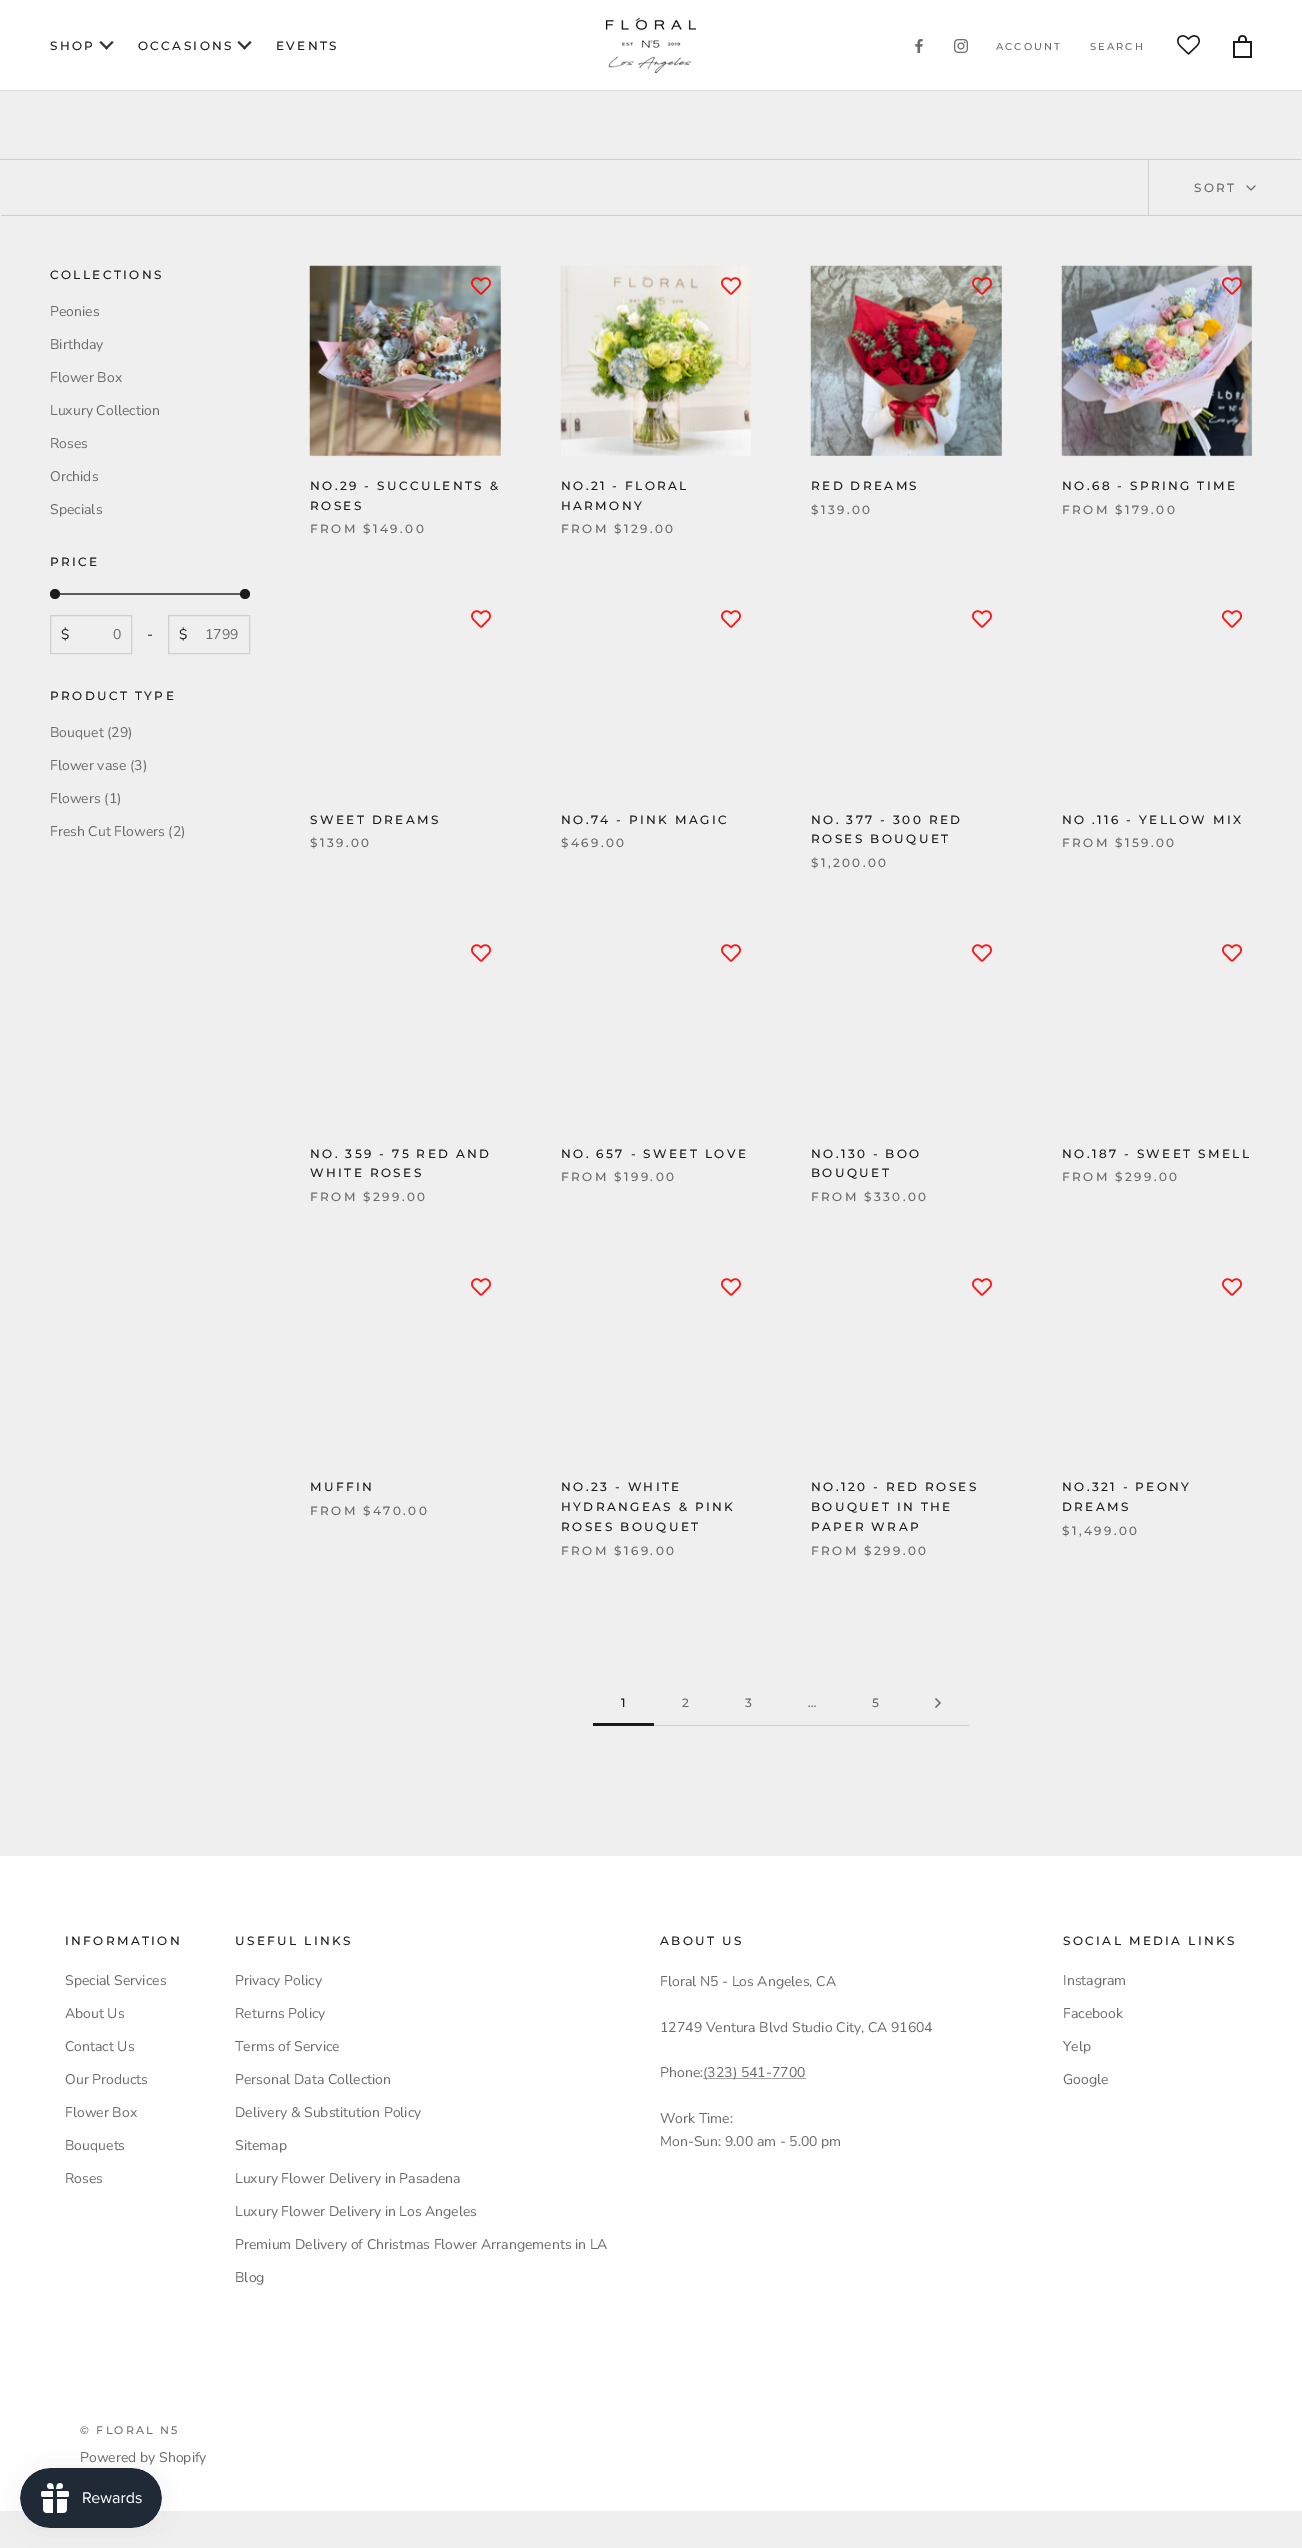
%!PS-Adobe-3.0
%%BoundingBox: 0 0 1302 2548
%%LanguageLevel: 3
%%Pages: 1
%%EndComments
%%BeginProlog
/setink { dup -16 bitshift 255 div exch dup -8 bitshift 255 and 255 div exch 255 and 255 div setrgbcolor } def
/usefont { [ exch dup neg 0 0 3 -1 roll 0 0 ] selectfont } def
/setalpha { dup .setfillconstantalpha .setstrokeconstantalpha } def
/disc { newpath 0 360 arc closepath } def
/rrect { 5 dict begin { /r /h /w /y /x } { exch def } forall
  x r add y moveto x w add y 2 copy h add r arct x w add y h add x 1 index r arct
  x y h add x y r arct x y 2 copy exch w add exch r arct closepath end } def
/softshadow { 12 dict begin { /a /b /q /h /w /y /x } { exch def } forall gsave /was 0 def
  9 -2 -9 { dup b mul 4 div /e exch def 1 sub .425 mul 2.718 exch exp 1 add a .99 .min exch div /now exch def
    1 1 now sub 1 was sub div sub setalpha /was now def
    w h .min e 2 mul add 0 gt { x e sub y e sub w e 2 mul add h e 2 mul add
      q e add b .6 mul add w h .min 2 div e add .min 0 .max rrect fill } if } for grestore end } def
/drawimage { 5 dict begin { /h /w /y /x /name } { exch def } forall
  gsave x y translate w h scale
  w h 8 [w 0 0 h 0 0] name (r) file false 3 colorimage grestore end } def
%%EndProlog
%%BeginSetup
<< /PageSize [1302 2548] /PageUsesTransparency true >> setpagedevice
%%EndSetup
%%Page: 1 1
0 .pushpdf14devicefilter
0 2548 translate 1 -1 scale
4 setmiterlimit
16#EFEFEF setink
0 0 1302 2548 rectfill
16#FFFFFF setink
0 0 1302 90 rectfill
16#DDDDDD setink
0 90 1302 1 rectfill
/Montserrat-Medium 12 usefont
16#1C1B1B setink
50 50 moveto 2.4 0 (SHOP) ashow
16#333333 setink
112 41 moveto 113.5 42.5 lineto 106.5 49.5 lineto 105 48 lineto closepath fill
101 41 moveto 108 48 lineto 106.5 49.5 lineto 99.5 42.5 lineto closepath fill
16#1C1B1B setink
138 50 moveto 2.4 0 (OCCASIONS) ashow
16#333333 setink
250 41 moveto 251.5 42.5 lineto 244.5 49.5 lineto 243 48 lineto closepath fill
239 41 moveto 246 48 lineto 244.5 49.5 lineto 237.5 42.5 lineto closepath fill
16#1C1B1B setink
276 50 moveto 2.4 0 (EVENTS) ashow
(img1.raw) 606 18 90 55 drawimage
(img2.raw) 915 39 8 14 drawimage
(img3.raw) 954 39 14 14 drawimage
/Montserrat-Medium 10 usefont
16#6A6A6A setink
996 50 moveto 2 0 (ACCOUNT) ashow
1090 50 moveto 2 0 (SEARCH) ashow
(img4.raw) 1177 35 23 20 drawimage
(img5.raw) 1233 35 19 23 drawimage
16#CFCFCF setink
-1 159 moveto -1 214 lineto 0 214 lineto 0 160 lineto 1301 160 lineto 1301 159 lineto closepath fill
1 215 moveto 1 216 lineto 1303 216 lineto 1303 161 lineto 1302 161 lineto 1302 215 lineto closepath fill
1148 160 1 55 rectfill
/Montserrat-Medium 12 usefont
16#6A6A6A setink
1194 192 moveto 2.4 0 (SORT) ashow
2 setlinecap
1255 186 moveto 1251 190 lineto 1247 186 lineto stroke
16#1C1B1B setink
50 279 moveto 2.4 0 (COLLECTIONS) ashow
/NunitoSans-Regular 14 usefont
16#6A6A6A setink
[
    [(Peonies) 50 316]
    [(Birthday) 50 349]
    [(Flower Box) 50 382]
    [(Luxury Collection) 50 415]
    [(Roses) 50 448]
    [(Orchids) 50 481]
    [(Specials) 50 514]
] { aload pop moveto show } forall
/Montserrat-Medium 12 usefont
16#1C1B1B setink
50 566 moveto 2.4 0 (PRICE) ashow
16#5B5B5B setink
50 593 200 2 1 rrect fill
16#1C1B1B setink
55 594 5 disc fill
245 594 5 disc fill
16#CFCFCF setink
0 setlinecap
50.5 615.5 81 38 rectstroke
/NunitoSans-Regular 14 usefont
16#1C1B1B setink
61 639 moveto ($) show
16#6A6A6A setink
113 639 moveto (0) show
16#1C1B1B setink
147 639 moveto (-) show
16#CFCFCF setink
168.5 615.5 81 38 rectstroke
16#1C1B1B setink
179 639 moveto ($) show
16#6A6A6A setink
205 639 moveto (1799) show
/Montserrat-Medium 12 usefont
16#1C1B1B setink
50 700 moveto 2.4 0 (PRODUCT TYPE) ashow
/NunitoSans-Regular 14 usefont
16#6A6A6A setink
[
    [(Bouquet \(29\)) 50 737]
    [(Flower vase \(3\)) 50 770]
    [(Flowers \(1\)) 50 803]
    [(Fresh Cut Flowers \(2\)) 50 836]
] { aload pop moveto show } forall
(img6.raw) 309 265 192 192 drawimage
(img7.raw) 471 277 20 18 drawimage
/Montserrat-Medium 12 usefont
16#1C1B1B setink
310 490 moveto 2.4 0 (NO.29 - SUCCULENTS &) ashow
310 510 moveto 2.4 0 (ROSES) ashow
16#6A6A6A setink
310 533 moveto 2.4 0 (FROM $149.00) ashow
(img8.raw) 560 265 191 191 drawimage
(img9.raw) 721 277 20 18 drawimage
16#1C1B1B setink
561 490 moveto 2.4 0 (NO.21 - FLORAL) ashow
561 510 moveto 2.4 0 (HARMONY) ashow
16#6A6A6A setink
561 533 moveto 2.4 0 (FROM $129.00) ashow
(img10.raw) 810 265 192 191 drawimage
(img11.raw) 972 277 20 18 drawimage
16#1C1B1B setink
811 490 moveto 2.4 0 (RED DREAMS) ashow
16#6A6A6A setink
811 514 moveto 2.4 0 ($139.00) ashow
(img12.raw) 1061 265 192 192 drawimage
(img13.raw) 1222 277 20 18 drawimage
16#1C1B1B setink
1062 490 moveto 2.4 0 (NO.68 - SPRING TIME) ashow
16#6A6A6A setink
1062 514 moveto 2.4 0 (FROM $179.00) ashow
(img14.raw) 471 610 20 18 drawimage
16#1C1B1B setink
310 824 moveto 2.4 0 (SWEET DREAMS) ashow
16#6A6A6A setink
310 847 moveto 2.4 0 ($139.00) ashow
(img14.raw) 721 610 20 18 drawimage
16#1C1B1B setink
561 824 moveto 2.4 0 (NO.74 - PINK MAGIC) ashow
16#6A6A6A setink
561 847 moveto 2.4 0 ($469.00) ashow
(img14.raw) 972 610 20 18 drawimage
16#1C1B1B setink
811 824 moveto 2.4 0 (NO. 377 - 300 RED) ashow
811 843 moveto 2.4 0 (ROSES BOUQUET) ashow
16#6A6A6A setink
811 867 moveto 2.4 0 ($1,200.00) ashow
(img14.raw) 1222 610 20 18 drawimage
16#1C1B1B setink
1062 824 moveto 2.4 0 (NO .116 - YELLOW MIX) ashow
16#6A6A6A setink
1062 847 moveto 2.4 0 (FROM $159.00) ashow
(img14.raw) 471 944 20 18 drawimage
16#1C1B1B setink
310 1158 moveto 2.4 0 (NO. 359 - 75 RED AND) ashow
310 1177 moveto 2.4 0 (WHITE ROSES) ashow
16#6A6A6A setink
310 1201 moveto 2.4 0 (FROM $299.00) ashow
(img14.raw) 721 944 20 18 drawimage
16#1C1B1B setink
561 1158 moveto 2.4 0 (NO. 657 - SWEET LOVE) ashow
16#6A6A6A setink
561 1181 moveto 2.4 0 (FROM $199.00) ashow
(img14.raw) 972 944 20 18 drawimage
16#1C1B1B setink
811 1158 moveto 2.4 0 (NO.130 - BOO) ashow
811 1177 moveto 2.4 0 (BOUQUET) ashow
16#6A6A6A setink
811 1201 moveto 2.4 0 (FROM $330.00) ashow
(img14.raw) 1222 944 20 18 drawimage
16#1C1B1B setink
1062 1158 moveto 2.4 0 (NO.187 - SWEET SMELL) ashow
16#6A6A6A setink
1062 1181 moveto 2.4 0 (FROM $299.00) ashow
(img14.raw) 471 1278 20 18 drawimage
16#1C1B1B setink
310 1491 moveto 2.4 0 (MUFFIN) ashow
16#6A6A6A setink
310 1515 moveto 2.4 0 (FROM $470.00) ashow
(img14.raw) 721 1278 20 18 drawimage
16#1C1B1B setink
561 1491 moveto 2.4 0 (NO.23 - WHITE) ashow
561 1511 moveto 2.4 0 (HYDRANGEAS & PINK) ashow
561 1531 moveto 2.4 0 (ROSES BOUQUET) ashow
16#6A6A6A setink
561 1555 moveto 2.4 0 (FROM $169.00) ashow
(img14.raw) 972 1278 20 18 drawimage
16#1C1B1B setink
811 1491 moveto 2.4 0 (NO.120 - RED ROSES) ashow
811 1511 moveto 2.4 0 (BOUQUET IN THE) ashow
811 1531 moveto 2.4 0 (PAPER WRAP) ashow
16#6A6A6A setink
811 1555 moveto 2.4 0 (FROM $299.00) ashow
(img14.raw) 1222 1278 20 18 drawimage
16#1C1B1B setink
1062 1491 moveto 2.4 0 (NO.321 - PEONY) ashow
1062 1511 moveto 2.4 0 (DREAMS) ashow
16#6A6A6A setink
1062 1535 moveto 2.4 0 ($1,499.00) ashow
16#1C1B1B setink
593 1723 61 3 rectfill
621 1707 moveto (1) show
16#CFCFCF setink
654 1725 315 1 rectfill
16#6A6A6A setink
[
    [(2) 682 1707]
    [(3) 745 1707]
    [(…) 808 1707]
    [(5) 872 1707]
] { aload pop moveto show } forall
1.1 setlinewidth
2 setlinecap
936 1699 moveto 940 1703 lineto 936 1707 lineto stroke
16#FFFFFF setink
0 1856 1302 655 rectfill
16#1C1B1B setink
65 1945 moveto 2.4 0 (INFORMATION) ashow
/NunitoSans-Regular 14 usefont
16#6A6A6A setink
[
    [(Special Services) 65 1985]
    [(About Us) 65 2018]
    [(Contact Us) 65 2051]
    [(Our Products) 65 2084]
    [(Flower Box) 65 2117]
    [(Bouquets) 65 2150]
    [(Roses) 65 2183]
] { aload pop moveto show } forall
/Montserrat-Medium 12 usefont
16#1C1B1B setink
235 1945 moveto 2.4 0 (USEFUL LINKS) ashow
/NunitoSans-Regular 14 usefont
16#6A6A6A setink
[
    [(Privacy Policy) 235 1985]
    [(Returns Policy) 235 2018]
    [(Terms of Service) 235 2051]
    [(Personal Data Collection) 235 2084]
    [(Delivery & Substitution Policy) 235 2117]
    [(Sitemap) 235 2150]
    [(Luxury Flower Delivery in Pasadena) 235 2183]
    [(Luxury Flower Delivery in Los Angeles) 235 2216]
    [(Premium Delivery of Christmas Flower Arrangements in LA) 235 2249]
    [(Blog) 235 2282]
] { aload pop moveto show } forall
/Montserrat-Medium 12 usefont
16#1C1B1B setink
660 1945 moveto 2.4 0 (ABOUT US) ashow
/NunitoSans-Regular 14 usefont
16#6A6A6A setink
[
    [(Floral N5 - Los Angeles, CA) 660 1986]
    [(12749 Ventura Blvd Studio City, CA 91604) 660 2032]
    [(Phone:) 660 2077]
] { aload pop moveto show } forall
16#A6A6A6 setink
703 2078 103 1 rectfill
16#6A6A6A setink
[
    [(\(323\) 541-7700) 703 2077]
    [(Work Time:) 660 2123]
    [(Mon-Sun: 9.00 am - 5.00 pm) 660 2146]
] { aload pop moveto show } forall
/Montserrat-Medium 12 usefont
16#1C1B1B setink
1063 1945 moveto 2.4 0 (SOCIAL MEDIA LINKS) ashow
/NunitoSans-Regular 14 usefont
16#6A6A6A setink
[
    [(Instagram) 1063 1985]
    [(Facebook) 1063 2018]
    [(Yelp) 1063 2051]
    [(Google) 1063 2084]
] { aload pop moveto show } forall
/Montserrat-Medium 11 usefont
80 2434 moveto 2.25 0 (© FLORAL N5) ashow
/NunitoSans-Regular 14 usefont
80 2462 moveto (Powered by Shopify) show
16#000000 setink
20 2468 142 60 30 12.5 0.05 softshadow
(img15.raw) 20 2468 142 60 drawimage
.poppdf14devicefilter showpage
%%EOF
